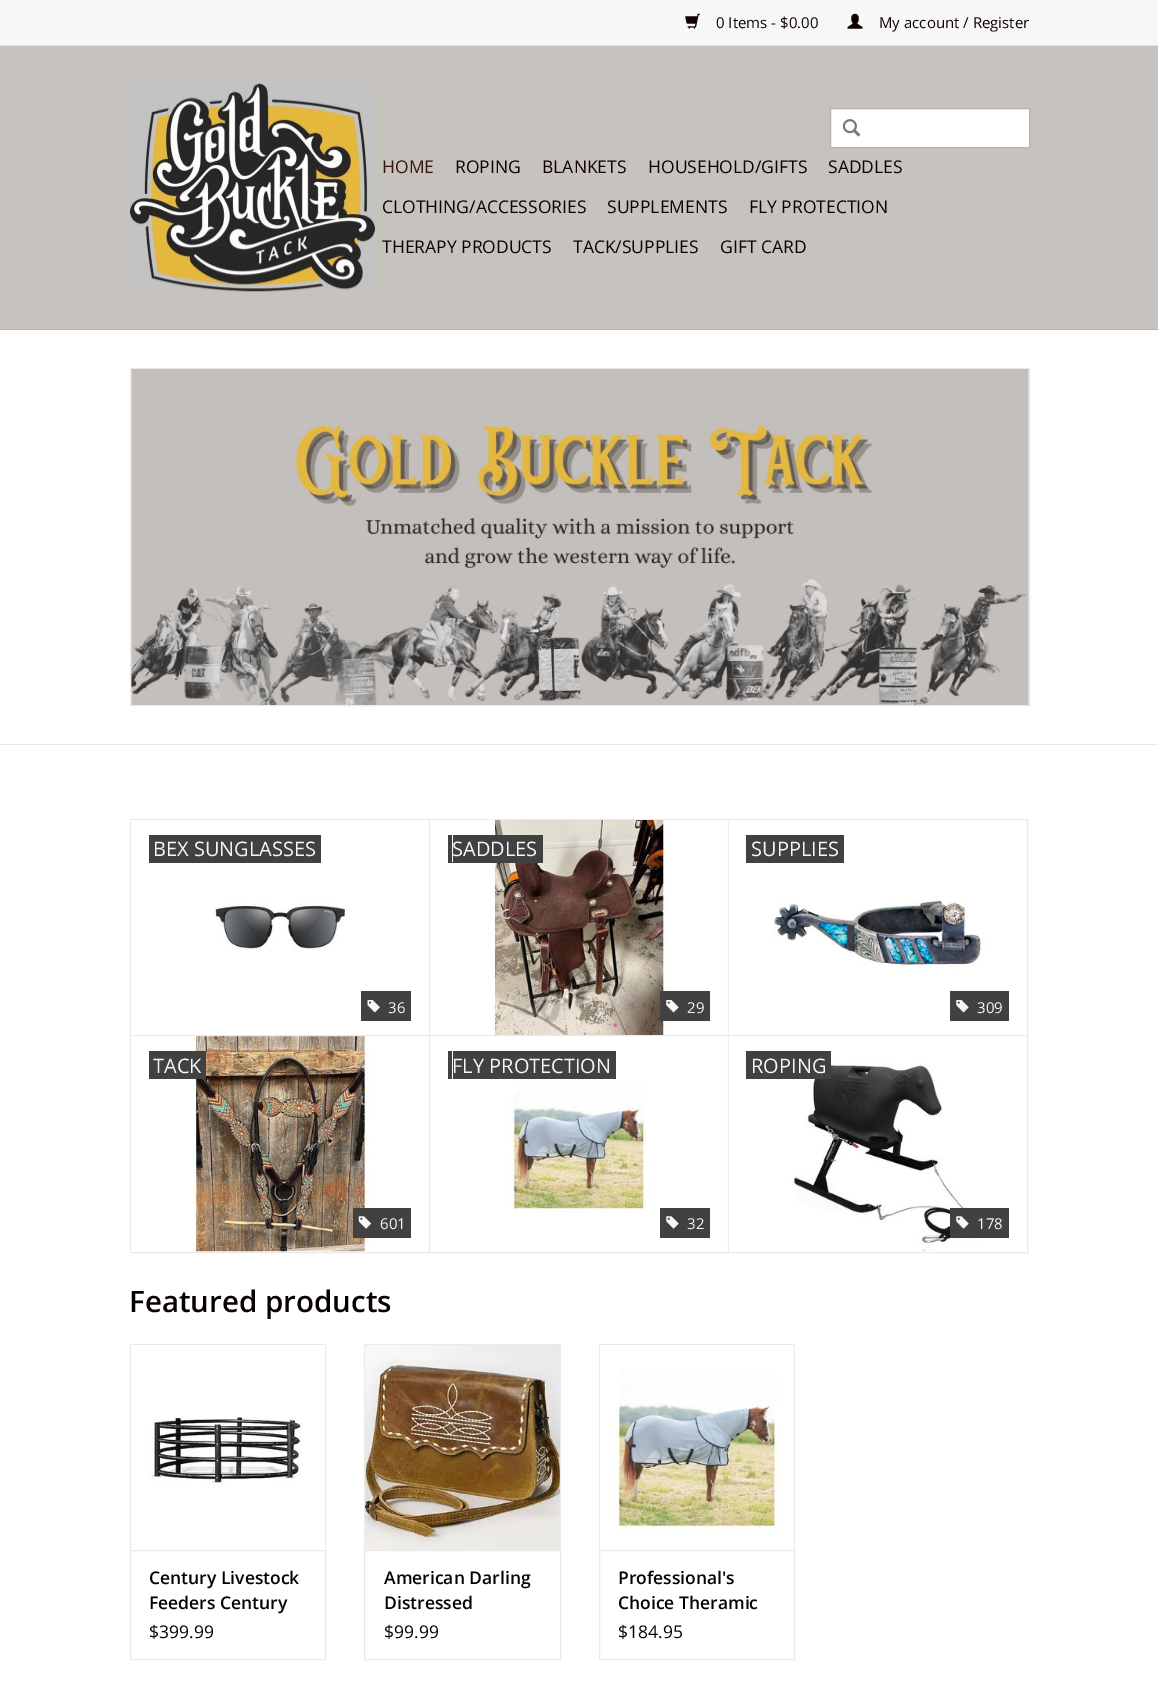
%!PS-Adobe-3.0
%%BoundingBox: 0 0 1158 1681
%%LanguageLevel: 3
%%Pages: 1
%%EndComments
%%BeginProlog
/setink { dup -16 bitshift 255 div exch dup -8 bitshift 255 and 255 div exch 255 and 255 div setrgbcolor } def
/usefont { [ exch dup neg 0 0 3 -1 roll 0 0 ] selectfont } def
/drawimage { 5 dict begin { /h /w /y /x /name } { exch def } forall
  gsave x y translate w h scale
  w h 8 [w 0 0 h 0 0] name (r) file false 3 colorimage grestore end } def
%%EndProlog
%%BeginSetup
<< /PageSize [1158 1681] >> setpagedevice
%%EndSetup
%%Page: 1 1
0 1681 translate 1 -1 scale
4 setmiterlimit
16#FFFFFF setink
0 0 1158 1681 rectfill
[
    [0 46 1158 283 16#C6C2BD]
    [0 329 1158 1 16#B6B2AD]
    [0 0 1158 45 16#F7F7F7]
    [0 45 1158 1 16#E5E5E5]
] { aload pop setink rectfill } forall
(img1.raw) 685 13 15 16 drawimage
/OpenSans-Regular 15 usefont
16#100101 setink
716 28 moveto (0 Items - $0.00) show
(img2.raw) 847 13 16 16 drawimage
879 28 moveto (My account / Register) show
(img3.raw) 130 83 245 209 drawimage
16#FFFFFF setink
830.5 108.5 moveto 1029.5 108.5 lineto 1029.5 147.5 lineto 830.5 147.5 lineto closepath gsave fill grestore
16#B6B2AD setink
stroke
(img4.raw) 842 119 19 18 drawimage
/OpenSans-Regular 17.5 usefont
16#39130E setink
382 173 moveto (HOME) show
16#100101 setink
[
    [(ROPING) 455 173]
    [(BLANKETS) 542 173]
    [(HOUSEHOLD/GIFTS) 648 173]
    [(SADDLES) 828 173]
    [(CLOTHING/ACCESSORIES) 382 213]
    [(SUPPLEMENTS) 607 213]
    [(FLY PROTECTION) 749 213]
    [(THERAPY PRODUCTS) 382 253]
    [(TACK/SUPPLIES) 573 253]
    [(GIFT CARD) 720 253]
] { aload pop moveto show } forall
16#EAEAEA setink
130.5 368.5 899 337 rectstroke
16#F7F7F7 setink
131 369 898 336 rectfill
(img5.raw) 131 369 898 336 drawimage
16#EAEAEA setink
0 744 1158 1 rectfill
130.5 819.5 299 216 rectstroke
(img6.raw) 131 820 298 215 drawimage
16#414141 setink
159 862 moveto 159 863 lineto 321 863 lineto 321 835 lineto 316 835 lineto 316 862 lineto closepath fill
149 835 moveto 149 863 lineto 311 863 lineto 311 862 lineto 154 862 lineto 154 835 lineto closepath fill
154 835 162 27 rectfill
/OpenSans-Regular 20 usefont
16#F7F7F7 setink
153 856 moveto (BEX SUNGLASSES) show
16#414141 setink
361 991 50 30 rectfill
(img7.raw) 367 1000 13 13 drawimage
/OpenSans-Regular 15 usefont
16#F7F7F7 setink
388 1013 moveto (36) show
16#EAEAEA setink
429.5 819.5 299 216 rectstroke
16#F7F7F7 setink
727 820 1 215 rectfill
(img8.raw) 430 820 298 215 drawimage
16#414141 setink
458 862 moveto 458 863 lineto 543 863 lineto 543 835 lineto 538 835 lineto 538 862 lineto closepath fill
448 835 moveto 448 863 lineto 533 863 lineto 533 862 lineto 452 862 lineto 452 835 lineto closepath fill
453 835 85 27 rectfill
/OpenSans-Regular 20 usefont
16#F7F7F7 setink
452 856 moveto (SADDLES) show
16#414141 setink
660 991 50 30 rectfill
(img9.raw) 666 1000 13 13 drawimage
/OpenSans-Regular 15 usefont
16#F7F7F7 setink
687 1013 moveto (29) show
16#EAEAEA setink
728.5 819.5 299 216 rectstroke
(img10.raw) 728 820 298 215 drawimage
16#414141 setink
756 862 moveto 756 863 lineto 844 863 lineto 844 835 lineto 839 835 lineto 839 862 lineto closepath fill
746 835 moveto 746 863 lineto 834 863 lineto 834 862 lineto 751 862 lineto 751 835 lineto closepath fill
751 835 88 27 rectfill
/OpenSans-Regular 20 usefont
16#F7F7F7 setink
751 856 moveto (SUPPLIES) show
16#414141 setink
950 991 59 30 rectfill
(img9.raw) 956 1000 13 13 drawimage
/OpenSans-Regular 15 usefont
16#F7F7F7 setink
977 1013 moveto (309) show
16#EAEAEA setink
130.5 1035.5 299 217 rectstroke
16#F7F7F7 setink
131 1036 298 215 rectfill
(img11.raw) 131 1036 298 216 drawimage
16#414141 setink
159 1051 moveto 201 1051 lineto 201 1079 lineto 159 1079 lineto 206 1079 lineto 206 1051 lineto closepath 149 1051 moveto 149 1079 lineto 196 1079 lineto 154 1079 lineto 154 1051 lineto 196 1051 lineto closepath fill
154 1051 47 28 rectfill
/OpenSans-Regular 20 usefont
16#F7F7F7 setink
153 1073 moveto (TACK) show
16#414141 setink
353 1208 58 30 rectfill
(img12.raw) 358 1216 14 13 drawimage
/OpenSans-Regular 15 usefont
16#F7F7F7 setink
380 1229 moveto (601) show
16#EAEAEA setink
429.5 1035.5 299 217 rectstroke
16#F7F7F7 setink
430 1036 298 215 rectfill
(img13.raw) 430 1036 298 215 drawimage
16#414141 setink
453 1051 158 28 rectfill
/OpenSans-Regular 20 usefont
16#F7F7F7 setink
452 1073 moveto (FLY PROTECTION) show
16#414141 setink
458 1051 moveto 611 1051 lineto 611 1079 lineto 458 1079 lineto 616 1079 lineto 616 1051 lineto closepath fill
448 1051 moveto 448 1079 lineto 606 1079 lineto 452 1079 lineto 452 1051 lineto 606 1051 lineto closepath fill
660 1208 50 30 rectfill
(img14.raw) 666 1216 13 13 drawimage
/OpenSans-Regular 15 usefont
16#F7F7F7 setink
687 1229 moveto (32) show
16#EAEAEA setink
728.5 1035.5 299 217 rectstroke
(img15.raw) 728 1036 298 216 drawimage
16#414141 setink
751 1051 75 28 rectfill
/OpenSans-Regular 20 usefont
16#F7F7F7 setink
751 1073 moveto (ROPING) show
16#414141 setink
756 1051 moveto 826 1051 lineto 826 1079 lineto 756 1079 lineto 831 1079 lineto 831 1051 lineto closepath fill
746 1051 moveto 746 1079 lineto 821 1079 lineto 751 1079 lineto 751 1051 lineto 821 1051 lineto closepath fill
950 1208 59 30 rectfill
(img14.raw) 956 1216 13 13 drawimage
/OpenSans-Regular 15 usefont
16#F7F7F7 setink
977 1229 moveto (178) show
/OpenSans-SemiBold 29.5 usefont
16#080101 setink
129 1312 moveto (Featured products) show
[
    [130 1344 196 1 16#EAEAEA]
    [325 1344 1 206 16#EAEAEA]
    [130 1344 1 206 16#EAEAEA]
] { aload pop setink rectfill } forall
(img16.raw) 131 1345 194 205 drawimage
130.5 1550.5 195 109 rectstroke
/OpenSans-SemiBold 17.5 usefont
16#080101 setink
149 1584 moveto (Century Livestock) show
149 1609 moveto (Feeders Century) show
/OpenSans-Regular 17.5 usefont
149 1638 moveto ($399.99) show
[
    [364 1344 197 1 16#EAEAEA]
    [560 1344 1 206 16#EAEAEA]
    [364 1344 1 206 16#EAEAEA]
] { aload pop setink rectfill } forall
(img17.raw) 365 1345 195 205 drawimage
364.5 1550.5 196 109 rectstroke
/OpenSans-SemiBold 17.5 usefont
16#080101 setink
384 1584 moveto (American Darling) show
384 1609 moveto (Distressed) show
/OpenSans-Regular 17.5 usefont
384 1638 moveto ($99.99) show
[
    [599 1344 196 1 16#EAEAEA]
    [794 1344 1 206 16#EAEAEA]
    [599 1344 1 206 16#EAEAEA]
] { aload pop setink rectfill } forall
(img18.raw) 600 1345 194 205 drawimage
599.5 1550.5 195 109 rectstroke
/OpenSans-SemiBold 17.5 usefont
16#080101 setink
618 1584 moveto (Professional's) show
618 1609 moveto (Choice Theramic) show
/OpenSans-Regular 17.5 usefont
618 1638 moveto ($184.95) show
showpage
%%EOF
